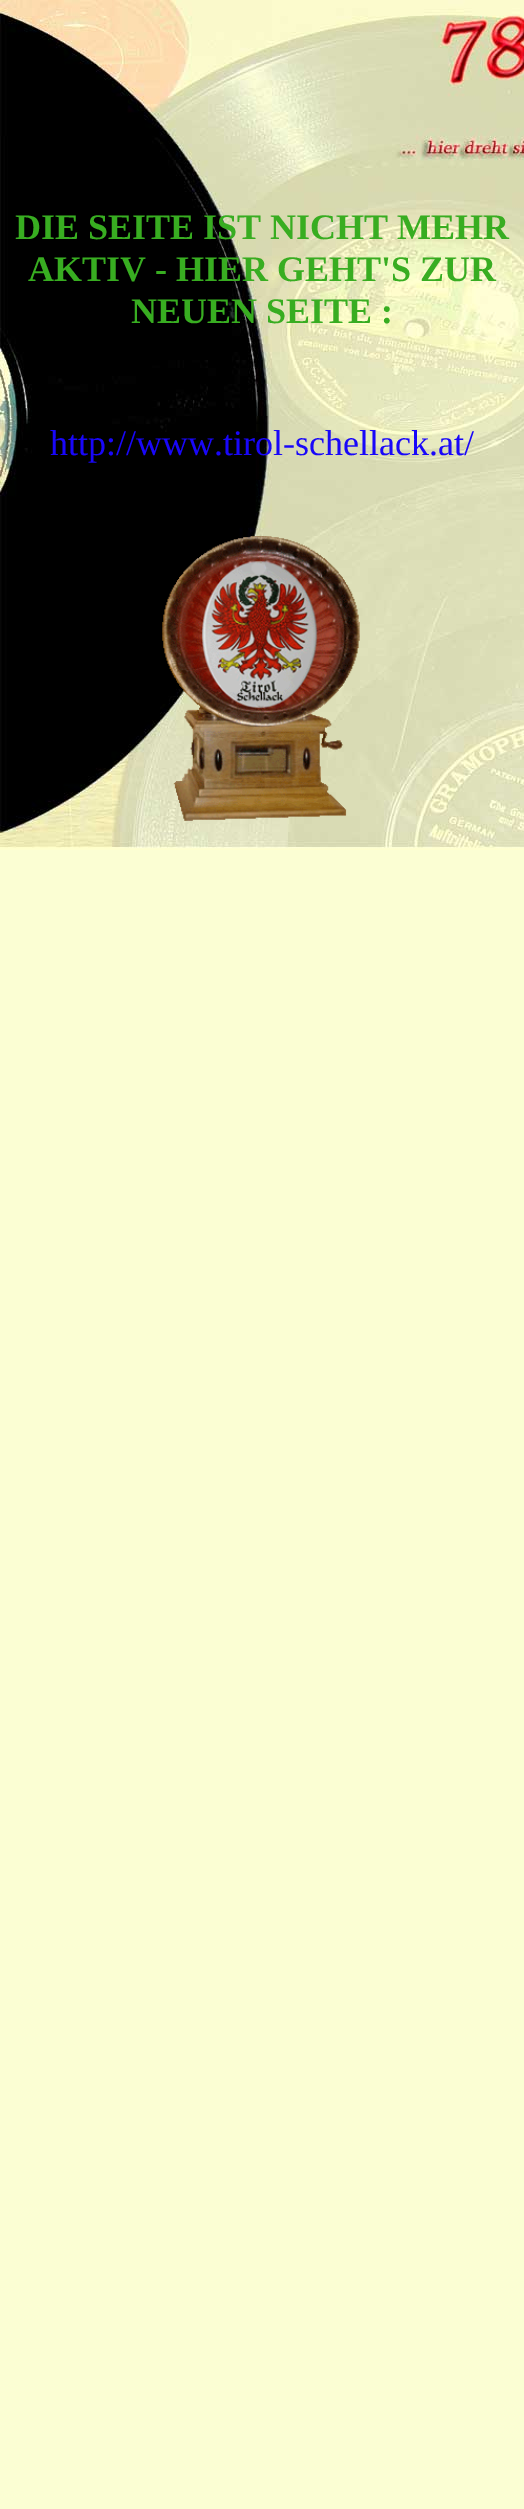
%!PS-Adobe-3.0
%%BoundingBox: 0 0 524 2509
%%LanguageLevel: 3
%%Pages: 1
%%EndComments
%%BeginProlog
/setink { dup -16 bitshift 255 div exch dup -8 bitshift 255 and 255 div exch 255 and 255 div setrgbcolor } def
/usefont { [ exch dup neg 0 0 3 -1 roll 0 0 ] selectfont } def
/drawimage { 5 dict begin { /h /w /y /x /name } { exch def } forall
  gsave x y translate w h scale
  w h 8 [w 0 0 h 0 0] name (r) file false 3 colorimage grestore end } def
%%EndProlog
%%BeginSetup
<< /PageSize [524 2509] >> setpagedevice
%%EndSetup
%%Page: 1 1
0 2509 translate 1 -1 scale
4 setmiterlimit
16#FBFED3 setink
0 0 524 2509 rectfill
(img1.raw) 0 0 524 850 drawimage
/LiberationSerif-Bold 36 usefont
16#38AD21 setink
[
    [(DIE SEITE IST NICHT MEHR) 15 239]
    [(AKTIV - HIER GEHT'S ZUR) 28 281]
    [(NEUEN SEITE :) 131 323]
] { aload pop moveto show } forall
/LiberationSerif-Regular 36 usefont
16#1907F9 setink
50 455 moveto (http://www.tirol-schellack.at/) show
(img2.raw) 162 536 198 285 drawimage
showpage
%%EOF
